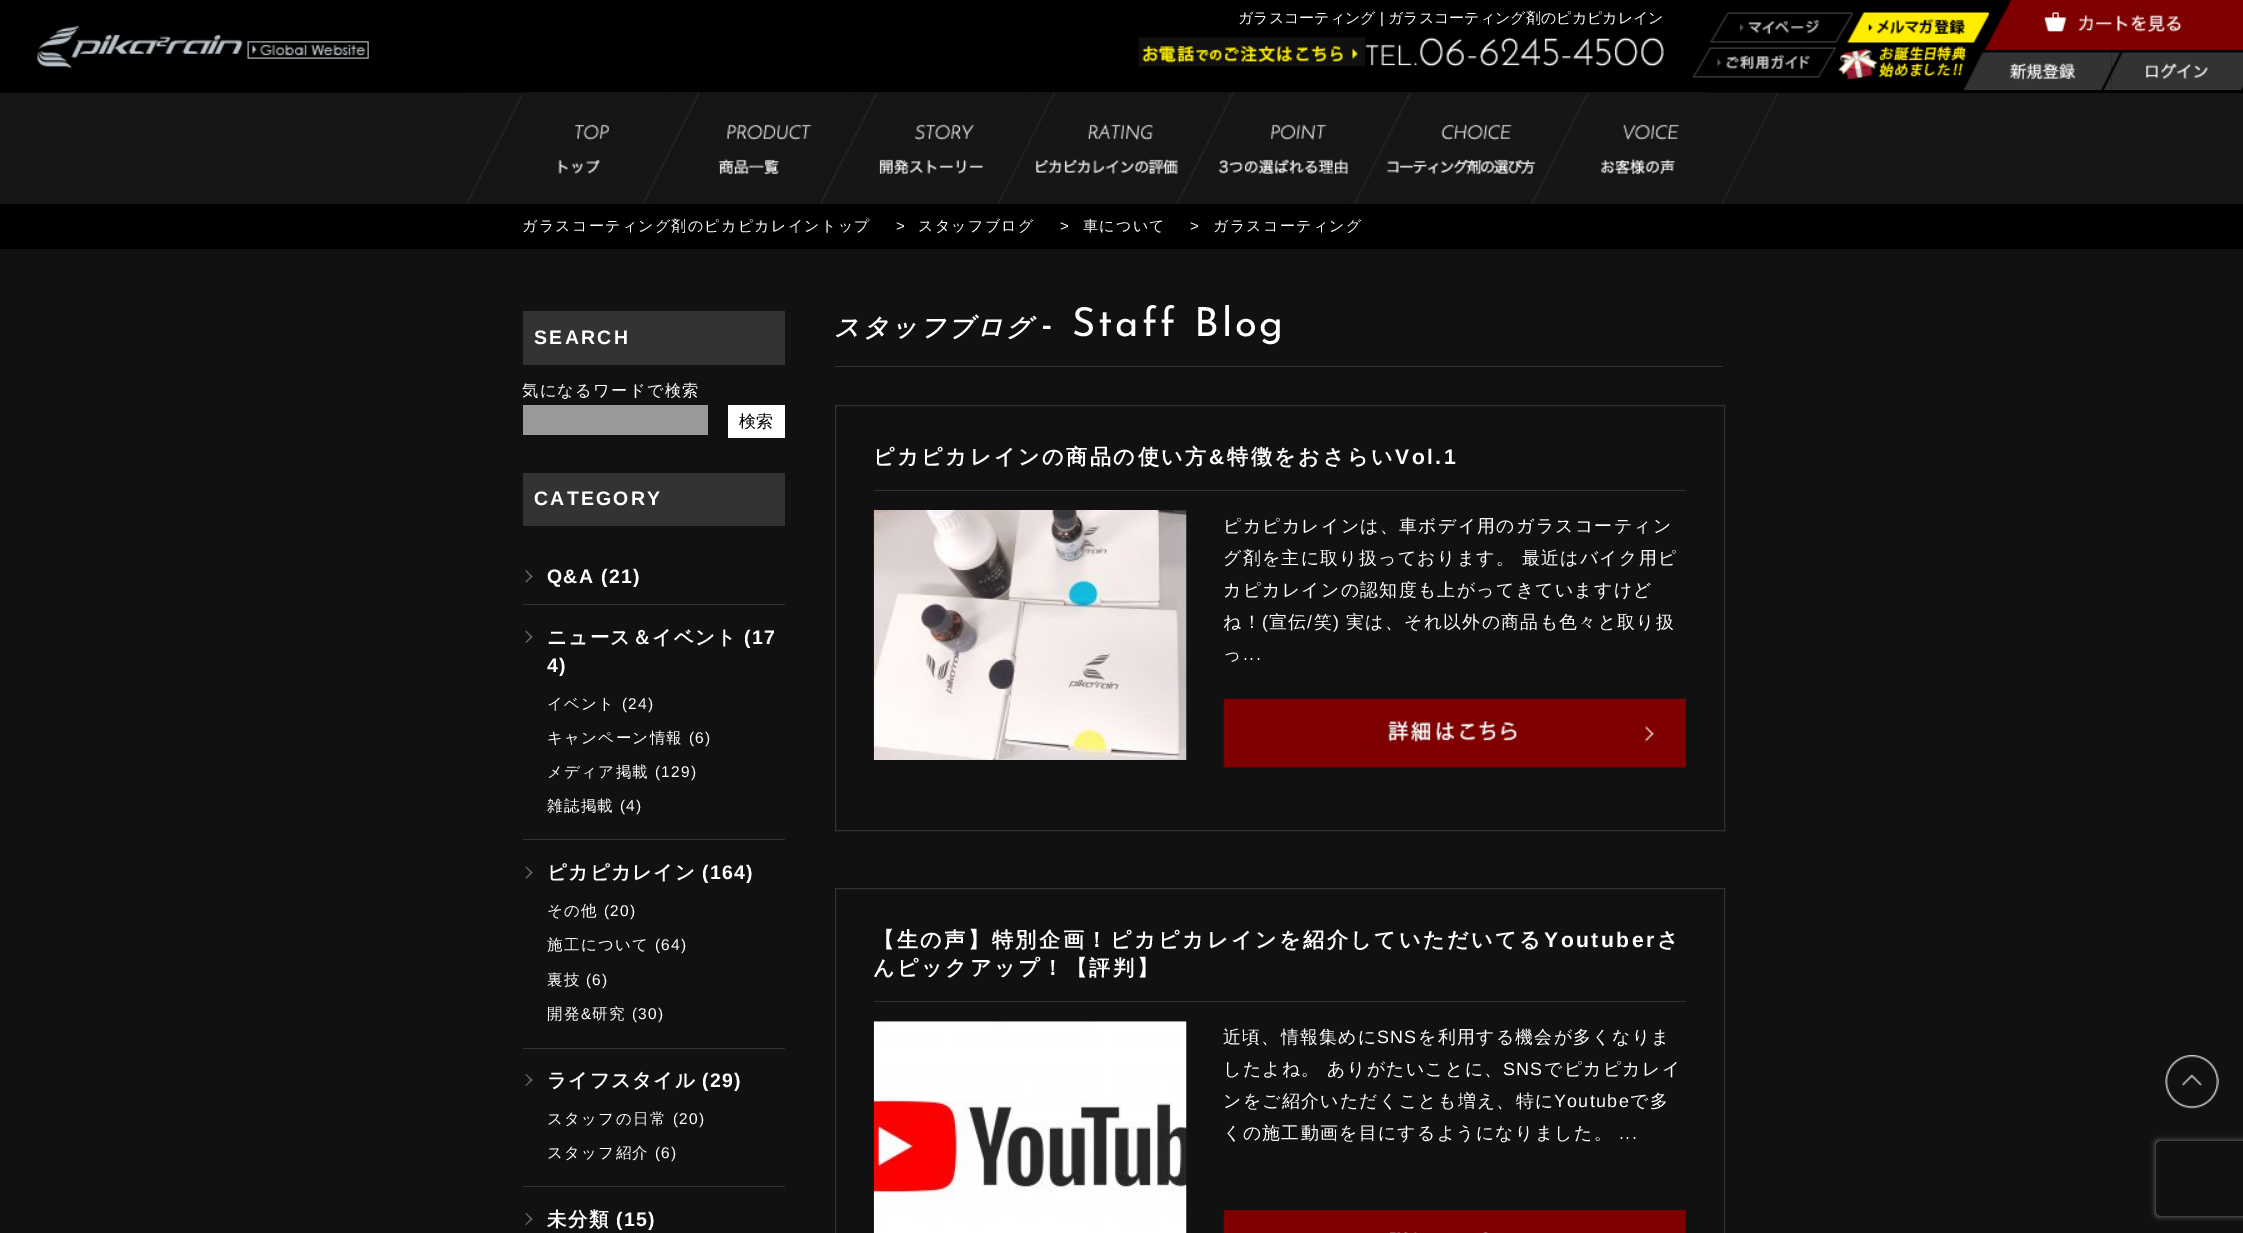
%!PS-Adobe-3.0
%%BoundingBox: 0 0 2243 1233
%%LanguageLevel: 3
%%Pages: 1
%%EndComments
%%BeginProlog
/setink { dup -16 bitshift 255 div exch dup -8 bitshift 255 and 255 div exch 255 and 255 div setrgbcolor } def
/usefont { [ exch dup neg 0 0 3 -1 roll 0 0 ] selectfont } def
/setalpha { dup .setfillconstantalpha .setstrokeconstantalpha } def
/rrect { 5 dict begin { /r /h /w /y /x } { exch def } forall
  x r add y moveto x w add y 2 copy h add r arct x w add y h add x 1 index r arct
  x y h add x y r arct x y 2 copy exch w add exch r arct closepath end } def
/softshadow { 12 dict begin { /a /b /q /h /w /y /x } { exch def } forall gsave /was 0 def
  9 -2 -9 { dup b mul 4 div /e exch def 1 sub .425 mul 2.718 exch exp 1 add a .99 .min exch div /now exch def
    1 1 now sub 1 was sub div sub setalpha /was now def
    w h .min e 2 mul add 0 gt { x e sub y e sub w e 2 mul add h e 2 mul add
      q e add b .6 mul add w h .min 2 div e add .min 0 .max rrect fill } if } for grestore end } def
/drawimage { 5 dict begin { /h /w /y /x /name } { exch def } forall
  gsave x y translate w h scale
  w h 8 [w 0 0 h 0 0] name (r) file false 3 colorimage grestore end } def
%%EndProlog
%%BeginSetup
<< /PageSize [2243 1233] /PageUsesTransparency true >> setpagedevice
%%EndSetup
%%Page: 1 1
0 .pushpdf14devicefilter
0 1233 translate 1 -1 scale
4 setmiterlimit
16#000000 setink
0 0 2243 1233 rectfill
/WenQuanYiZenHei-Medium 15 usefont
16#FFFFFF setink
1238 23 moveto (ガラスコーティング) show
/LiberationSans-Regular 15 usefont
1380 23 moveto (|) show
/WenQuanYiZenHei-Medium 15 usefont
1388 23 moveto (ガラスコーティング剤のピカピカレイン) show
(img1.raw) 1138 37 526 30 drawimage
(img3.raw) 1838 12 151 68 drawimage
(img2.raw) 1710 12 143 31 drawimage
(img4.raw) 1692 47 145 31 drawimage
(img5.raw) 1984 0 259 50 drawimage
(img6.raw) 1963 52 149 38 drawimage
(img7.raw) 2111 52 132 38 drawimage
(img8.raw) 37 25 206 44 drawimage
(img9.raw) 247 41 122 18 drawimage
16#161616 setink
0 93 2243 111 rectfill
(img10.raw) 466 92 1313 112 drawimage
(img11.raw) 522 92 149 112 drawimage
(img12.raw) 671 92 178 112 drawimage
(img13.raw) 849 92 177 112 drawimage
(img14.raw) 1026 92 179 112 drawimage
(img15.raw) 1205 92 178 112 drawimage
(img16.raw) 1382 92 178 112 drawimage
(img17.raw) 1560 92 148 84 drawimage
16#111111 setink
0 249 2243 984 rectfill
16#FFFFFF setink
522 231 moveto 1.3 0 (ガラスコーティング剤のピカピカレイントップ) ashow
/LiberationSans-Regular 15 usefont
896 231 moveto 1.3 0 (>) ashow
/WenQuanYiZenHei-Medium 15 usefont
918 231 moveto 1.3 0 (スタッフブログ) ashow
/LiberationSans-Regular 15 usefont
1060 231 moveto 1.3 0 (>) ashow
/WenQuanYiZenHei-Medium 15 usefont
1083 231 moveto 1.3 0 (車について) ashow
/LiberationSans-Regular 15 usefont
1190 231 moveto 1.3 0 (>) ashow
/WenQuanYiZenHei-Medium 15 usefont
1213 231 moveto 1.3 0 (ガラスコーティング) ashow
16#333333 setink
523 311 262 54 rectfill
/LiberationSans-Bold 19.5 usefont
16#FFFFFF setink
534 344 moveto 2.25 0 (SEARCH) ashow
/WenQuanYiZenHei-Medium 16.25 usefont
522 396 moveto 1.3 0 (気になるワードで検索) ashow
16#999999 setink
523 405 185 30 rectfill
16#FFFFFF setink
728 405 57 33 rectfill
/WenQuanYiZenHei-Medium 17 usefont
16#000000 setink
739 427 moveto (検索) show
16#333333 setink
523 473 262 53 rectfill
/LiberationSans-Bold 19.5 usefont
16#FFFFFF setink
534 505 moveto 2.25 0 (CATEGORY) ashow
16#333333 setink
523 604 262 1 rectfill
16#666666 setink
525.5 571 moveto 526 570 lineto 532.5 576.5 lineto 531.5 577.5 lineto closepath fill
525.5 581.5 moveto 531.5 575.5 lineto 532.5 576.5 lineto 526 582.5 lineto closepath fill
16#FFFFFF setink
547 583 moveto 1.3 0 (Q&A \(21\)) ashow
16#333333 setink
523 839 262 1 rectfill
16#666666 setink
525.5 631.5 moveto 526 630.5 lineto 532.5 637 lineto 531.5 638 lineto closepath fill
525.5 642 moveto 531.5 636 lineto 532.5 637 lineto 526 643 lineto closepath fill
/WenQuanYiZenHei-Bold 19.5 usefont
16#FFFFFF setink
547 644 moveto 1.3 0 (ニュース＆イベント) ashow
/LiberationSans-Bold 19.5 usefont
744 644 moveto 1.3 0 (\(17) ashow
547 672 moveto 1.3 0 (4\)) ashow
/WenQuanYiZenHei-Medium 15.5 usefont
547 709 moveto 1.3 0 (イベント) ashow
/LiberationSans-Regular 15.5 usefont
622 709 moveto 1.3 0 (\(24\)) ashow
/WenQuanYiZenHei-Medium 15.5 usefont
547 743 moveto 1.3 0 (キャンペーン情報) ashow
/LiberationSans-Regular 15.5 usefont
689 743 moveto 1.3 0 (\(6\)) ashow
/WenQuanYiZenHei-Medium 15.5 usefont
547 777 moveto 1.3 0 (メディア掲載) ashow
/LiberationSans-Regular 15.5 usefont
655 777 moveto 1.3 0 (\(129\)) ashow
/WenQuanYiZenHei-Medium 15.5 usefont
547 811 moveto 1.3 0 (雑誌掲載) ashow
/LiberationSans-Regular 15.5 usefont
620 811 moveto 1.3 0 (\(4\)) ashow
16#333333 setink
523 1048 262 1 rectfill
16#666666 setink
525.5 867 moveto 526 866.5 lineto 532.5 872.5 lineto 531.5 873.5 lineto closepath fill
525.5 878 moveto 531.5 871.5 lineto 532.5 872.5 lineto 526.5 878.5 lineto closepath fill
/WenQuanYiZenHei-Bold 19.5 usefont
16#FFFFFF setink
547 879 moveto 1.3 0 (ピカピカレイン) ashow
/LiberationSans-Bold 19.5 usefont
702 879 moveto 1.3 0 (\(164\)) ashow
/WenQuanYiZenHei-Medium 15.5 usefont
547 916 moveto 1.3 0 (その他) ashow
/LiberationSans-Regular 15.5 usefont
604 916 moveto 1.3 0 (\(20\)) ashow
/WenQuanYiZenHei-Medium 15.5 usefont
547 950 moveto 1.3 0 (施工について) ashow
/LiberationSans-Regular 15.5 usefont
655 950 moveto 1.3 0 (\(64\)) ashow
/WenQuanYiZenHei-Medium 15.5 usefont
547 985 moveto 1.3 0 (裏技) ashow
/LiberationSans-Regular 15.5 usefont
586 985 moveto 1.3 0 (\(6\)) ashow
/WenQuanYiZenHei-Medium 15.5 usefont
547 1019 moveto 1.3 0 (開発) ashow
/LiberationSans-Regular 15.5 usefont
581 1019 moveto 1.3 0 (&) ashow
/WenQuanYiZenHei-Medium 15.5 usefont
592 1019 moveto 1.3 0 (研究) ashow
/LiberationSans-Regular 15.5 usefont
632 1019 moveto 1.3 0 (\(30\)) ashow
16#333333 setink
523 1186 262 1 rectfill
16#666666 setink
525.5 1074.5 moveto 526 1074 lineto 532.5 1080 lineto 531.5 1081 lineto closepath fill
525.5 1085.5 moveto 531.5 1079 lineto 532.5 1080 lineto 526 1086 lineto closepath fill
/WenQuanYiZenHei-Bold 19.5 usefont
16#FFFFFF setink
547 1087 moveto 1.3 0 (ライフスタイル) ashow
/LiberationSans-Bold 19.5 usefont
702 1087 moveto 1.3 0 (\(29\)) ashow
/WenQuanYiZenHei-Medium 15.5 usefont
547 1124 moveto 1.3 0 (スタッフの日常) ashow
/LiberationSans-Regular 15.5 usefont
673 1124 moveto 1.3 0 (\(20\)) ashow
/WenQuanYiZenHei-Medium 15.5 usefont
547 1158 moveto 1.3 0 (スタッフ紹介) ashow
/LiberationSans-Regular 15.5 usefont
655 1158 moveto 1.3 0 (\(6\)) ashow
16#666666 setink
525.5 1213.5 moveto 526 1213 lineto 532.5 1219 lineto 531.5 1220 lineto closepath fill
525.5 1224.5 moveto 531.5 1218 lineto 532.5 1219 lineto 526 1225 lineto closepath fill
/WenQuanYiZenHei-Bold 19.5 usefont
16#FFFFFF setink
547 1226 moveto 1.3 0 (未分類) ashow
/LiberationSans-Bold 19.5 usefont
616 1226 moveto 1.3 0 (\(15\)) ashow
16#323232 setink
835 366 888 1 rectfill
/WenQuanYiZenHei-BoldItalic 25 usefont
16#FFFFFF setink
834 336 moveto 3 0 (スタッフブログ) ashow
/JosefinSans-Regular 40 usefont
1041 336 moveto 3 0 (- Staff Blog) ashow
16#323232 setink
835.5 405.5 889 425 rectstroke
874 490 812 1 rectfill
/WenQuanYiZenHei-Bold 21.1 usefont
16#FFFFFF setink
873 464 moveto 2.55 0 (ピカピカレインの商品の使い方) ashow
/LiberationSans-Bold 21.1 usefont
1209 464 moveto 2.55 0 (&) ashow
/WenQuanYiZenHei-Bold 21.1 usefont
1227 464 moveto 2.55 0 (特徴をおさらい) ashow
/LiberationSans-Bold 21.1 usefont
1395 464 moveto 2.55 0 (Vol.1) ashow
(img18.raw) 873 510 314 250 drawimage
/WenQuanYiZenHei-Medium 17.9 usefont
1223 532 moveto 1.3 0 (ピカピカレインは、車ボデイ用のガラスコーティン) ashow
1223 564 moveto 1.3 0 (グ剤を主に取り扱っております。 最近はバイク用ピ) ashow
1223 596 moveto 1.3 0 (カピカレインの認知度も上がってきていますけど) ashow
1223 628 moveto 1.3 0 (ね！) ashow
/LiberationSans-Regular 17.9 usefont
1262 628 moveto 1.3 0 (\() ashow
/WenQuanYiZenHei-Medium 17.9 usefont
1269 628 moveto 1.3 0 (宣伝) ashow
/LiberationSans-Regular 17.9 usefont
1307 628 moveto 1.3 0 (/) ashow
/WenQuanYiZenHei-Medium 17.9 usefont
1314 628 moveto 1.3 0 (笑) ashow
/LiberationSans-Regular 17.9 usefont
1333 628 moveto 1.3 0 (\)) ashow
/WenQuanYiZenHei-Medium 17.9 usefont
1346 628 moveto 1.3 0 (実は、それ以外の商品も色々と取り扱) ashow
1223 660 moveto 1.3 0 (っ) ashow
/LiberationSans-Regular 17.9 usefont
1243 660 moveto 1.3 0 (...) ashow
(img19.raw) 1223 698 464 70 drawimage
16#323232 setink
835.5 888.5 889 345 rectstroke
874 1001 812 1 rectfill
/WenQuanYiZenHei-Bold 21.1 usefont
16#FFFFFF setink
873 947 moveto 2.55 0 (【生の声】特別企画！ピカピカレインを紹介していただいてる) ashow
/LiberationSans-Bold 21.1 usefont
1544 947 moveto 2.55 0 (Youtuber) ashow
/WenQuanYiZenHei-Bold 21.1 usefont
1657 947 moveto 2.55 0 (さ) ashow
873 975 moveto 2.55 0 (んピックアップ！【評判】) ashow
(img20.raw) 873 1021 314 212 drawimage
/WenQuanYiZenHei-Medium 17.9 usefont
1223 1043 moveto 1.3 0 (近頃、情報集めに) ashow
/LiberationSans-Regular 17.9 usefont
1377 1043 moveto 1.3 0 (SNS) ashow
/WenQuanYiZenHei-Medium 17.9 usefont
1418 1043 moveto 1.3 0 (を利用する機会が多くなりま) ashow
1223 1075 moveto 1.3 0 (したよね。 ありがたいことに、) ashow
/LiberationSans-Regular 17.9 usefont
1503 1075 moveto 1.3 0 (SNS) ashow
/WenQuanYiZenHei-Medium 17.9 usefont
1544 1075 moveto 1.3 0 (でピカピカレイ) ashow
1223 1107 moveto 1.3 0 (ンをご紹介いただくことも増え、特に) ashow
/LiberationSans-Regular 17.9 usefont
1554 1107 moveto 1.3 0 (Youtube) ashow
/WenQuanYiZenHei-Medium 17.9 usefont
1630 1107 moveto 1.3 0 (で多) ashow
1223 1139 moveto 1.3 0 (くの施工動画を目にするようになりました。) ashow
/LiberationSans-Regular 17.9 usefont
1619 1139 moveto 1.3 0 (...) ashow
(img21.raw) 1223 1210 464 23 drawimage
(img22.raw) 2165 1055 54 54 drawimage
gsave
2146 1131 moveto 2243 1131 lineto 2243 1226 lineto 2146 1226 lineto closepath 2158.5 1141 moveto 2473.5 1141 lineto 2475 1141 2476 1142 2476 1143.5 curveto 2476 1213.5 lineto 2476 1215 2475 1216 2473.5 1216 curveto 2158.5 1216 lineto 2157 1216 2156 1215 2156 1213.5 curveto 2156 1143.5 lineto 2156 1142 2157 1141 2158.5 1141 curveto closepath eoclip newpath
16#808080 setink
2156 1141 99 75 2.5 3 1 softshadow
grestore
.poppdf14devicefilter showpage
%%EOF
